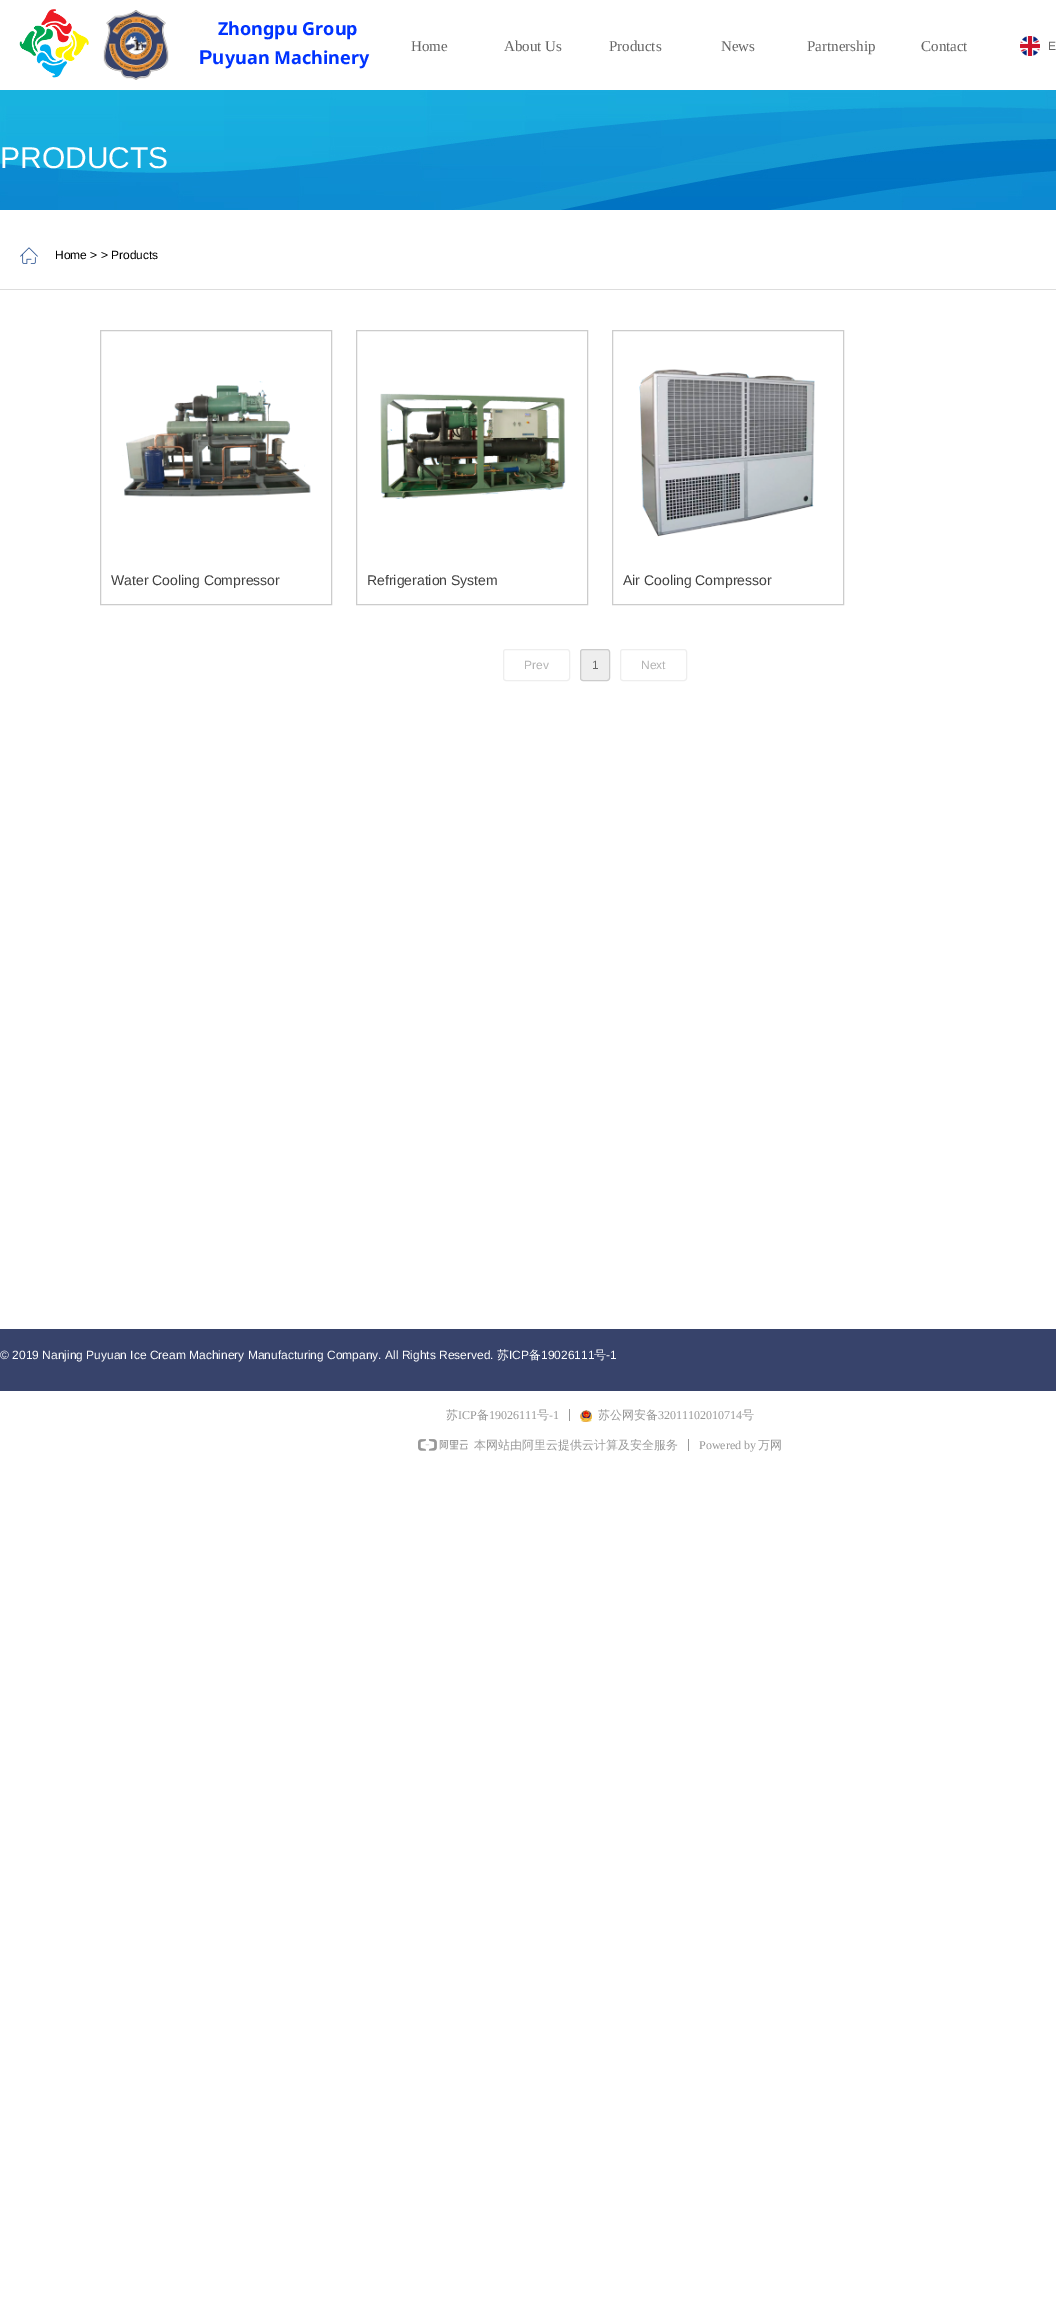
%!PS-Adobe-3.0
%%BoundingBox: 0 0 1056 2321
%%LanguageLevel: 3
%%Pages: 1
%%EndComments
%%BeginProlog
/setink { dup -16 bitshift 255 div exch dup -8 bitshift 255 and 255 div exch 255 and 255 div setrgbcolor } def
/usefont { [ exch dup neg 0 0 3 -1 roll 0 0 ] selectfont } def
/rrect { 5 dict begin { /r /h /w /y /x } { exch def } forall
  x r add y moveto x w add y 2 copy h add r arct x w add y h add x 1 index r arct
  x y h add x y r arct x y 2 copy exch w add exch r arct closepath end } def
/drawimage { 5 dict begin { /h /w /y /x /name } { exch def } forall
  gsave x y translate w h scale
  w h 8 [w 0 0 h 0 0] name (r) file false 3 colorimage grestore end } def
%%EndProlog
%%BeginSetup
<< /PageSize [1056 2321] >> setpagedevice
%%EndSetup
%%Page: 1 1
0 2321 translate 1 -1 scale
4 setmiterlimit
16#FFFFFF setink
0 0 1056 2321 rectfill
(img1.raw) 19 9 70 69 drawimage
(img2.raw) 103 10 66 70 drawimage
/NotoSans-Bold 18 usefont
16#0033FF setink
218 35 moveto (Zhongpu Group) show
/LiberationSans-Bold 20 usefont
199 64 moveto (Pu) show
/NotoSans-Bold 18 usefont
225 64 moveto (yuan Machinery) show
/LiberationSerif-Regular 15 usefont
16#666666 setink
[
    [(Home) 411 51]
    [(About Us) 504 51]
    [(Products) 609 51]
    [(News) 721 51]
    [(Partnership) 807 51]
    [(Contact) 921 51]
] { aload pop moveto show } forall
(img3.raw) 1020 36 20 20 drawimage
/LiberationSans-Regular 12 usefont
1048 50 moveto (E) show
(img4.raw) 0 90 1056 120 drawimage
/LiberationSans-Regular 30 usefont
16#FFFFFF setink
0 168 moveto (PRODUCTS) show
(img5.raw) 20 247 18 17 drawimage
/LiberationSans-Regular 12 usefont
16#000000 setink
55 259 moveto (Home > > Products) show
16#DDDDDD setink
0 289 1056 1 rectfill
16#CCCCCC setink
100.5 330.5 231 274 rectstroke
(img6.raw) 122 381 189 116 drawimage
/LiberationSans-Regular 14 usefont
16#404040 setink
111 585 moveto (Water Cooling Compressor) show
16#CCCCCC setink
356.5 330.5 231 274 rectstroke
(img7.raw) 380 393 186 106 drawimage
16#404040 setink
367 585 moveto (Refrigeration System) show
16#CCCCCC setink
612.5 330.5 231 274 rectstroke
(img8.raw) 639 369 176 168 drawimage
16#404040 setink
623 585 moveto (Air Cooling Compressor) show
16#EEEEEE setink
503.5 649.5 66 31 2.5 rrect stroke
/LiberationSans-Regular 12 usefont
16#B3B3B3 setink
524 669 moveto (Prev) show
16#EEEEEE setink
580.5 649.5 29 31 2.5 rrect gsave fill grestore
16#CCCCCC setink
stroke
16#666666 setink
592 669 moveto (1) show
16#EEEEEE setink
620.5 649.5 66 31 2.5 rrect stroke
16#B3B3B3 setink
641 669 moveto (Next) show
16#37436B setink
0 1329 1056 62 rectfill
16#FFFFFF setink
0 1359 moveto (© 2019 Nanjing Puyuan Ice Cream Machinery Manufacturing Company. All Rights Reserved.) show
/WenQuanYiZenHei-Medium 12 usefont
497 1359 moveto (苏) show
/LiberationSans-Regular 12 usefont
509 1359 moveto (ICP) show
/WenQuanYiZenHei-Medium 12 usefont
529 1359 moveto (备) show
/LiberationSans-Regular 12 usefont
541 1359 moveto (19026111) show
/WenQuanYiZenHei-Medium 12 usefont
594 1359 moveto (号) show
/LiberationSans-Regular 12 usefont
606 1359 moveto (-1) show
/WenQuanYiZenHei-Medium 12 usefont
16#989898 setink
446 1419 moveto (苏) show
/LiberationSerif-Regular 12 usefont
458 1419 moveto (ICP) show
/WenQuanYiZenHei-Medium 12 usefont
477 1419 moveto (备) show
/LiberationSerif-Regular 12 usefont
489 1419 moveto (19026111) show
/WenQuanYiZenHei-Medium 12 usefont
537 1419 moveto (号) show
/LiberationSerif-Regular 12 usefont
549 1419 moveto (-1) show
569 1409 1 12 rectfill
(img9.raw) 580 1410 12 12 drawimage
/WenQuanYiZenHei-Medium 12 usefont
598 1419 moveto (苏公网安备) show
/LiberationSerif-Regular 12 usefont
658 1419 moveto (32011102010714) show
/WenQuanYiZenHei-Medium 12 usefont
742 1419 moveto (号) show
(img10.raw) 418 1439 50 12 drawimage
474 1449 moveto (本网站由阿里云提供云计算及安全服务) show
688 1439 1 12 rectfill
/LiberationSerif-Regular 12 usefont
699 1449 moveto (Powered by) show
/WenQuanYiZenHei-Medium 12 usefont
758 1449 moveto (万网) show
showpage
%%EOF
